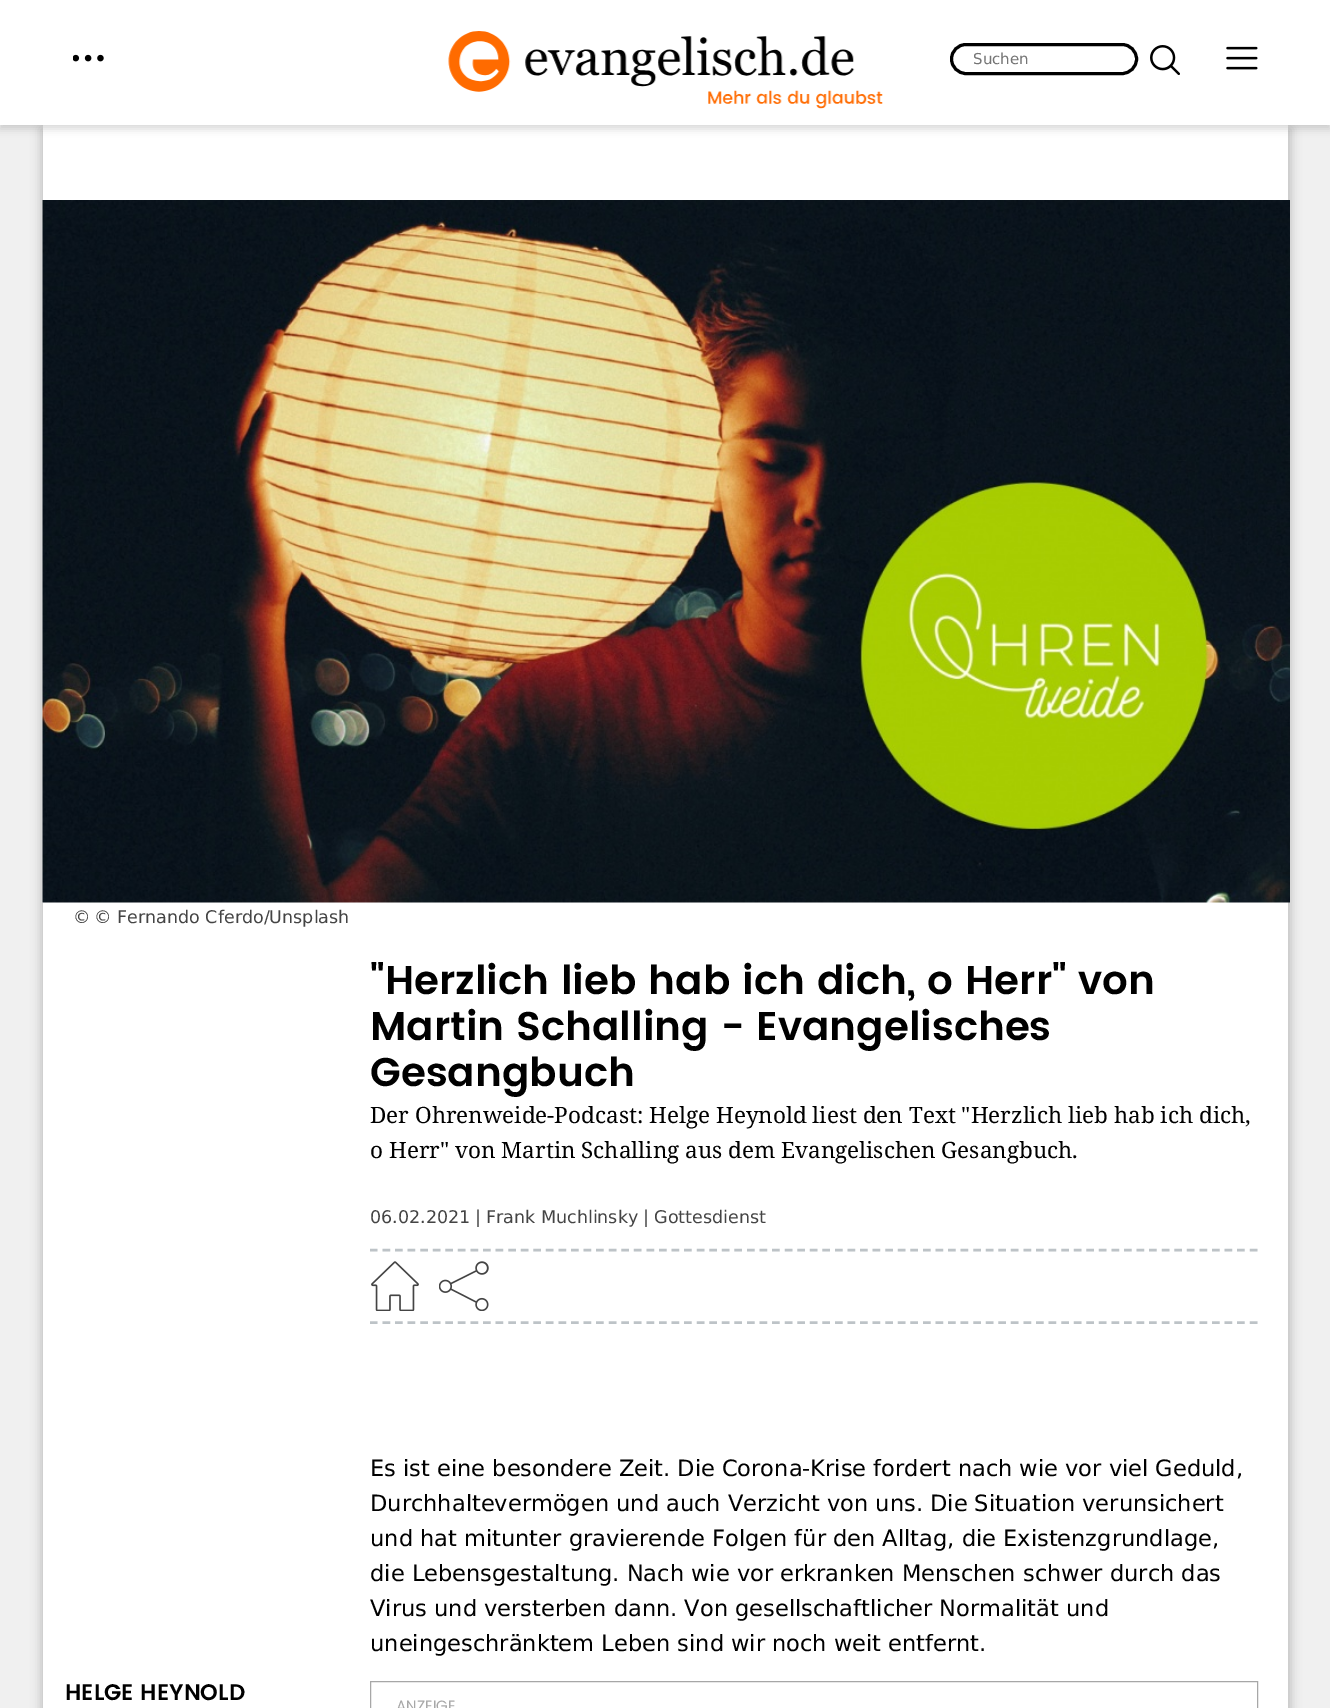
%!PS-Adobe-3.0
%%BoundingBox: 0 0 1330 1708
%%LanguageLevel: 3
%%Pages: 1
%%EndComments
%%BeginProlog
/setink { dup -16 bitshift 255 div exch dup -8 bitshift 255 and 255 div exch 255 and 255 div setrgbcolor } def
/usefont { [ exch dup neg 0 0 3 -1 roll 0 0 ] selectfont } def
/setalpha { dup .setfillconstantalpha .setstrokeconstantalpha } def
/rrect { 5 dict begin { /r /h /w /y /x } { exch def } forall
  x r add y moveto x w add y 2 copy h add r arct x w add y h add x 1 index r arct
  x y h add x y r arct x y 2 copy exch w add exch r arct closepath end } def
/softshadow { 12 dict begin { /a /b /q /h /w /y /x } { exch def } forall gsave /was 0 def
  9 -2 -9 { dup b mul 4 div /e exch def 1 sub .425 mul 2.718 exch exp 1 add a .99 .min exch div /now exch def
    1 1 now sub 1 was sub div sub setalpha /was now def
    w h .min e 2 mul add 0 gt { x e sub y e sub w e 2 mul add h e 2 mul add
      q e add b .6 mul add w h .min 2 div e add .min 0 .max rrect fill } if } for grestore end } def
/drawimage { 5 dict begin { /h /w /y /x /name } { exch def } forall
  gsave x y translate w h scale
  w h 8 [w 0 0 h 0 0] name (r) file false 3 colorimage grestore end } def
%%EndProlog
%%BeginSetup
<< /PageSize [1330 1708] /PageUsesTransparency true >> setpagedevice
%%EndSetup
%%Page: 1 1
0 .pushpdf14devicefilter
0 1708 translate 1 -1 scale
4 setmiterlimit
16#F0F0F0 setink
0 0 1330 1708 rectfill
16#000000 setink
41 129 1250 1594 0 5 0.2 softshadow
16#FFFFFF setink
43 125 1245 1583 rectfill
16#000000 setink
0 4 1330 125 0 4 0.15 softshadow
16#FFFFFF setink
0 0 1330 125 rectfill
(img1.raw) 73 54 31 8 drawimage
(img2.raw) 448 31 435 78 drawimage
16#000000 setink
3 setlinewidth
951.5 44.5 185 29 14.5 rrect stroke
/DejaVuSans-Regular 15 usefont
16#757575 setink
973 64 moveto (Suchen) show
(img3.raw) 1150 45 30 30 drawimage
(img4.raw) 1226 46 32 24 drawimage
(img5.raw) 42 200 1248 703 drawimage
/DejaVuSans-Regular 17.5 usefont
16#444444 setink
73 923 moveto (©) show
94 923 moveto (© Fernando Cferdo/Unsplash) show
/Poppins-SemiBold 40 usefont
16#000000 setink
[
    [("Herzlich lieb hab ich dich, o Herr" von) 370 994]
    [(Martin Schalling - Evangelisches) 370 1040]
    [(Gesangbuch) 370 1086]
] { aload pop moveto show } forall
/NotoSerif-Regular 22.5 usefont
370 1123 moveto (Der Ohrenweide-Podcast: Helge Heynold liest den Text "Herzlich lieb hab ich dich,) show
370 1158 moveto (o Herr" von Martin Schalling aus dem Evangelischen Gesangbuch.) show
16#BDC3C7 setink
2.5 setlinewidth
[7.5 5.07] 0 setdash
370 1250 moveto 1257.5 1250 lineto stroke
/DejaVuSans-Regular 17.5 usefont
16#444444 setink
[
    [(06.02.2021) 370 1223]
    [(|) 475 1223]
    [(Frank Muchlinsky) 486 1223]
    [(|) 643 1223]
    [(Gottesdienst) 654 1223]
] { aload pop moveto show } forall
16#BDC3C7 setink
370 1322.5 moveto 1257.5 1322.5 lineto stroke
(img6.raw) 371 1261 48 50 drawimage
(img7.raw) 439 1261 50 50 drawimage
/DejaVuSans-Regular 22.5 usefont
16#000000 setink
[
    [(Es ist eine besondere Zeit. Die Corona-Krise fordert nach wie vor viel Geduld,) 370 1476]
    [(Durchhaltevermögen und auch Verzicht von uns. Die Situation verunsichert) 370 1511]
    [(und hat mitunter gravierende Folgen für den Alltag, die Existenzgrundlage,) 370 1546]
    [(die Lebensgestaltung. Nach wie vor erkranken Menschen schwer durch das) 370 1581]
    [(Virus und versterben dann. Von gesellschaftlicher Normalität und) 370 1616]
    [(uneingeschränktem Leben sind wir noch weit entfernt.) 370 1651]
] { aload pop moveto show } forall
/Poppins-SemiBold 22.5 usefont
65 1700 moveto (HELGE HEYNOLD) show
16#A7A7A7 setink
1 setlinewidth
[] 0 setdash
370.5 1681.5 887 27 rectstroke
/Poppins-Regular 15 usefont
396 1711 moveto (ANZEIGE) show
.poppdf14devicefilter showpage
%%EOF
